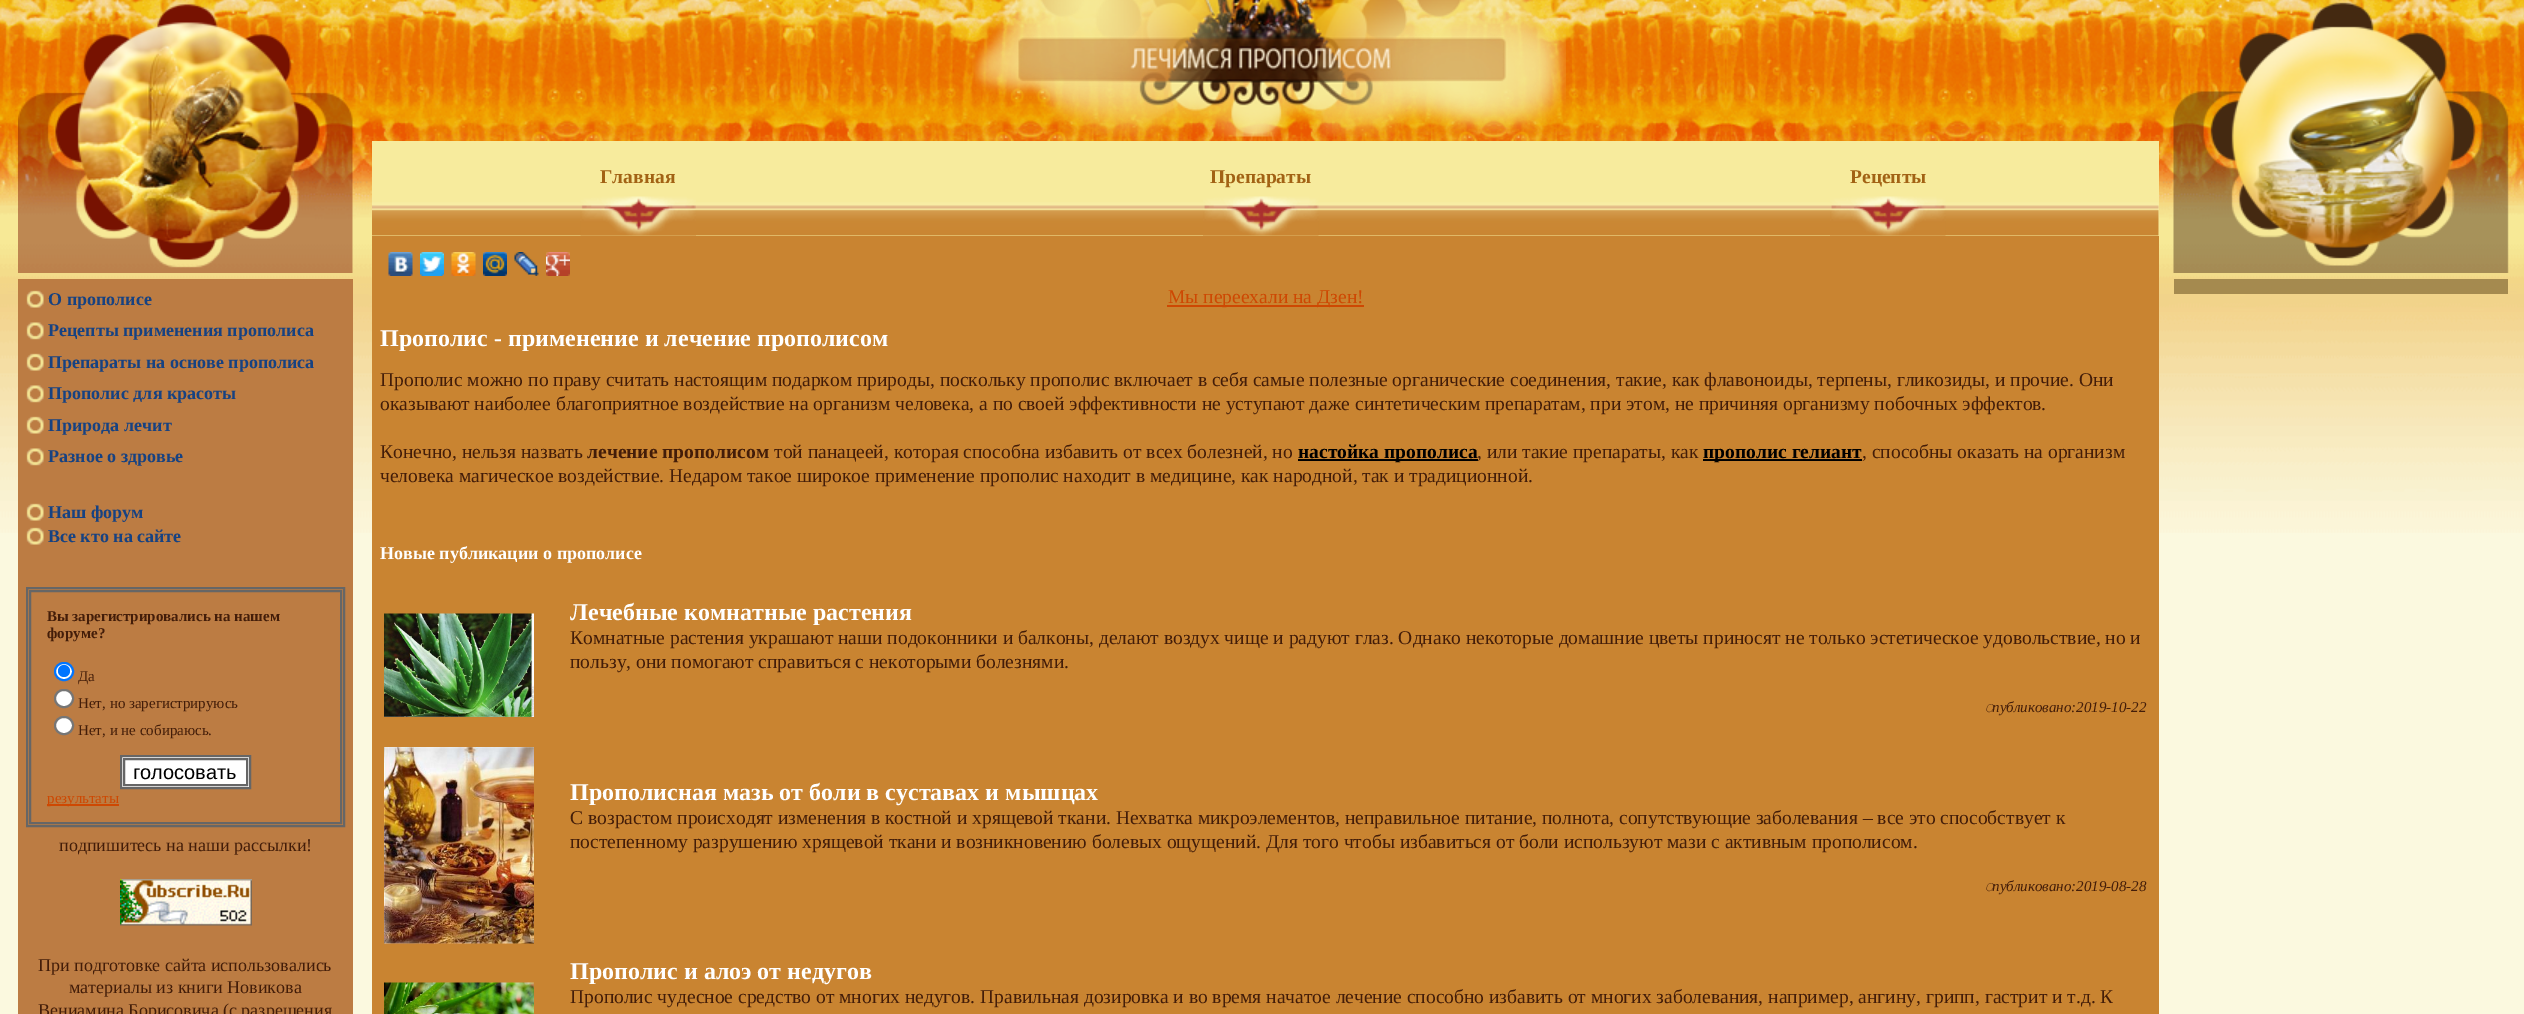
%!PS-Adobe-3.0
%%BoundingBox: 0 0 2524 1014
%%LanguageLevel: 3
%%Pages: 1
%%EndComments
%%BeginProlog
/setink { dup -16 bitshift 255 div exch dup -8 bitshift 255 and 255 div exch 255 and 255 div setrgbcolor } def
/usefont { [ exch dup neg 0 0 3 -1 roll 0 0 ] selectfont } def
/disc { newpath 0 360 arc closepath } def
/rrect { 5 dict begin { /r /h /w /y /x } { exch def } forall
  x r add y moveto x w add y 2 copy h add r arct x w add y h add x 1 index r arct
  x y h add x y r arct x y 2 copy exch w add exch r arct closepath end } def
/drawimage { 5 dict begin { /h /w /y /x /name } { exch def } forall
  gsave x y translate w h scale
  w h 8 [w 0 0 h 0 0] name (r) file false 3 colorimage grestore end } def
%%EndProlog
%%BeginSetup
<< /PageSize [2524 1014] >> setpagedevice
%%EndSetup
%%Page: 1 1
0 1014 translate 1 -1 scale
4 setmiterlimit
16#FBF9DF setink
0 0 2524 1014 rectfill
(img1.raw) 0 0 2524 533 drawimage
(img2.raw) 18 0 336 273 drawimage
16#BC7C43 setink
18 279 335 735 rectfill
(img3.raw) 26 290 18 18 drawimage
/LiberationSerif-Bold 18 usefont
16#164282 setink
48 305 moveto (О прополисе) show
(img4.raw) 26 322 18 18 drawimage
48 336 moveto (Рецепты применения прополиса) show
(img3.raw) 26 353 18 18 drawimage
48 368 moveto (Препараты на основе прополиса) show
(img4.raw) 26 385 18 18 drawimage
48 399 moveto (Прополис для красоты) show
(img3.raw) 26 416 18 18 drawimage
48 431 moveto (Природа лечит) show
(img4.raw) 26 448 18 18 drawimage
48 462 moveto (Разное о здровье) show
(img3.raw) 26 503 18 18 drawimage
48 518 moveto (Наш форум) show
(img3.raw) 26 527 18 18 drawimage
48 542 moveto (Все кто на сайте) show
16#666666 setink
2 setlinewidth
27 588 317 238 rectstroke
30 591 311 232 rectstroke
/LiberationSerif-Bold 15 usefont
16#431D09 setink
47 621 moveto (Вы зарегистрировались на нашем) show
47 638 moveto (форуме?) show
16#FFFFFF setink
55 663 18 17 8.5 rrect gsave fill grestore
16#0075FF setink
stroke
64 671 6 disc fill
/LiberationSerif-Regular 15 usefont
16#431D09 setink
78 681 moveto (Да) show
16#FFFFFF setink
55 690 18 17 8.5 rrect gsave fill grestore
16#767676 setink
stroke
16#431D09 setink
78 708 moveto (Нет, но зарегистрируюсь) show
16#FFFFFF setink
55 717 18 17 8.5 rrect gsave fill grestore
16#767676 setink
stroke
16#431D09 setink
78 735 moveto (Нет, и не собираюсь.) show
16#FFFFFF setink
121 756 moveto 250 756 lineto 250 788 lineto 121 788 lineto closepath gsave fill grestore
16#666666 setink
stroke
124 759 123 26 rectstroke
/LiberationSans-Regular 20 usefont
16#000000 setink
133 779 moveto (голосовать) show
16#CE4802 setink
47 804 72 2 rectfill
/LiberationSerif-Regular 15 usefont
47 803 moveto (результаты) show
/LiberationSerif-Regular 18 usefont
16#431D09 setink
59 851 moveto (подпишитесь на наши рассылки!) show
(img5.raw) 120 879 132 47 drawimage
[
    [(При подготовке сайта использовались) 38 971]
    [(материалы из книги Новикова) 69 993]
    [(Вениамина Борисовича \(с разрешения) 38 1016]
] { aload pop moveto show } forall
(img6.raw) 972 0 594 137 drawimage
16#F7EB9D setink
372 141 1787 95 rectfill
(img7.raw) 372 202 1787 34 drawimage
(img8.raw) 580 196 116 40 drawimage
/LiberationSerif-Bold 19.5 usefont
16#A26214 setink
600 183 moveto (Главная) show
(img9.raw) 1203 196 116 40 drawimage
1210 183 moveto (Препараты) show
(img10.raw) 1830 196 116 40 drawimage
1850 183 moveto (Рецепты) show
16#C98431 setink
372 236 1787 778 rectfill
(img11.raw) 388 252 25 24 drawimage
(img12.raw) 420 252 24 24 drawimage
(img13.raw) 451 252 25 24 drawimage
(img14.raw) 483 252 24 24 drawimage
(img15.raw) 514 252 25 24 drawimage
(img16.raw) 546 252 24 24 drawimage
16#CE4802 setink
1167 305 197 2 rectfill
/LiberationSerif-Regular 19.5 usefont
1168 303 moveto (Мы переехали на Дзен!) show
/LiberationSerif-Bold 24 usefont
16#FFFFFF setink
380 346 moveto (Прополис - применение и лечение прополисом) show
/LiberationSerif-Regular 19.5 usefont
16#431D09 setink
[
    [(Прополис можно по праву считать настоящим подарком природы, поскольку прополис включает в себя самые полезные органические соединения, такие, как флавоноиды, терпены, гликозиды, и прочие. Они) 380 386]
    [(оказывают наиболее благоприятное воздействие на организм человека, а по своей эффективности не уступают даже синтетическим препаратам, при этом, не причиняя организму побочных эффектов.) 380 410]
    [(Конечно, нельзя назвать) 380 458]
] { aload pop moveto show } forall
/LiberationSerif-Bold 19.5 usefont
587 458 moveto (лечение прополисом) show
/LiberationSerif-Regular 19.5 usefont
774 458 moveto (той панацеей, которая способна избавить от всех болезней, но) show
16#000000 setink
1298 459 180 2 rectfill
/LiberationSerif-Bold 19.5 usefont
1298 458 moveto (настойка прополиса) show
/LiberationSerif-Regular 19.5 usefont
16#431D09 setink
1477 458 moveto (, или такие препараты, как) show
16#000000 setink
1703 459 159 2 rectfill
/LiberationSerif-Bold 19.5 usefont
1703 458 moveto (прополис гелиант) show
/LiberationSerif-Regular 19.5 usefont
16#431D09 setink
1862 458 moveto (, способны оказать на организм) show
380 482 moveto (человека магическое воздействие. Недаром такое широкое применение прополис находит в медицине, как народной, так и традиционной.) show
/LiberationSerif-Bold 18 usefont
16#FFFFFF setink
380 559 moveto (Новые публикации о прополисе) show
(img17.raw) 384 613 150 104 drawimage
/LiberationSerif-Bold 24 usefont
570 620 moveto (Лечебные комнатные растения) show
/LiberationSerif-Regular 19.5 usefont
16#431D09 setink
570 644 moveto (Комнатные растения украшают наши подоконники и балконы, делают воздух чище и радуют глаз. Однако некоторые домашние цветы приносят не только эстетическое удовольствие, но и) show
570 668 moveto (пользу, они помогают справиться с некоторыми болезнями.) show
/NotoSans-ThinItalic 15 usefont
1985 712 moveto (о) show
/LiberationSerif-Italic 15 usefont
1992 712 moveto (публиковано:2019-10-22) show
(img18.raw) 384 747 150 197 drawimage
/LiberationSerif-Bold 24 usefont
16#FFFFFF setink
570 800 moveto (Прополисная мазь от боли в суставах и мышцах) show
/LiberationSerif-Regular 19.5 usefont
16#431D09 setink
570 824 moveto (С возрастом происходят изменения в костной и хрящевой ткани. Нехватка микроэлементов, неправильное питание, полнота, сопутствующие заболевания – все это способствует к) show
570 848 moveto (постепенному разрушению хрящевой ткани и возникновению болевых ощущений. Для того чтобы избавиться от боли используют мази с активным прополисом.) show
/NotoSans-ThinItalic 15 usefont
1985 891 moveto (о) show
/LiberationSerif-Italic 15 usefont
1992 891 moveto (публиковано:2019-08-28) show
(img19.raw) 384 982 150 32 drawimage
/LiberationSerif-Bold 24 usefont
16#FFFFFF setink
570 979 moveto (Прополис и алоэ от недугов) show
/LiberationSerif-Regular 19.5 usefont
16#431D09 setink
570 1003 moveto (Прополис чудесное средство от многих недугов. Правильная дозировка и во время начатое лечение способно избавить от многих заболевания, например, ангину, грипп, гастрит и т.д. К) show
(img20.raw) 2173 2 336 271 drawimage
16#A58A4F setink
2174 279 334 15 rectfill
showpage
%%EOF
